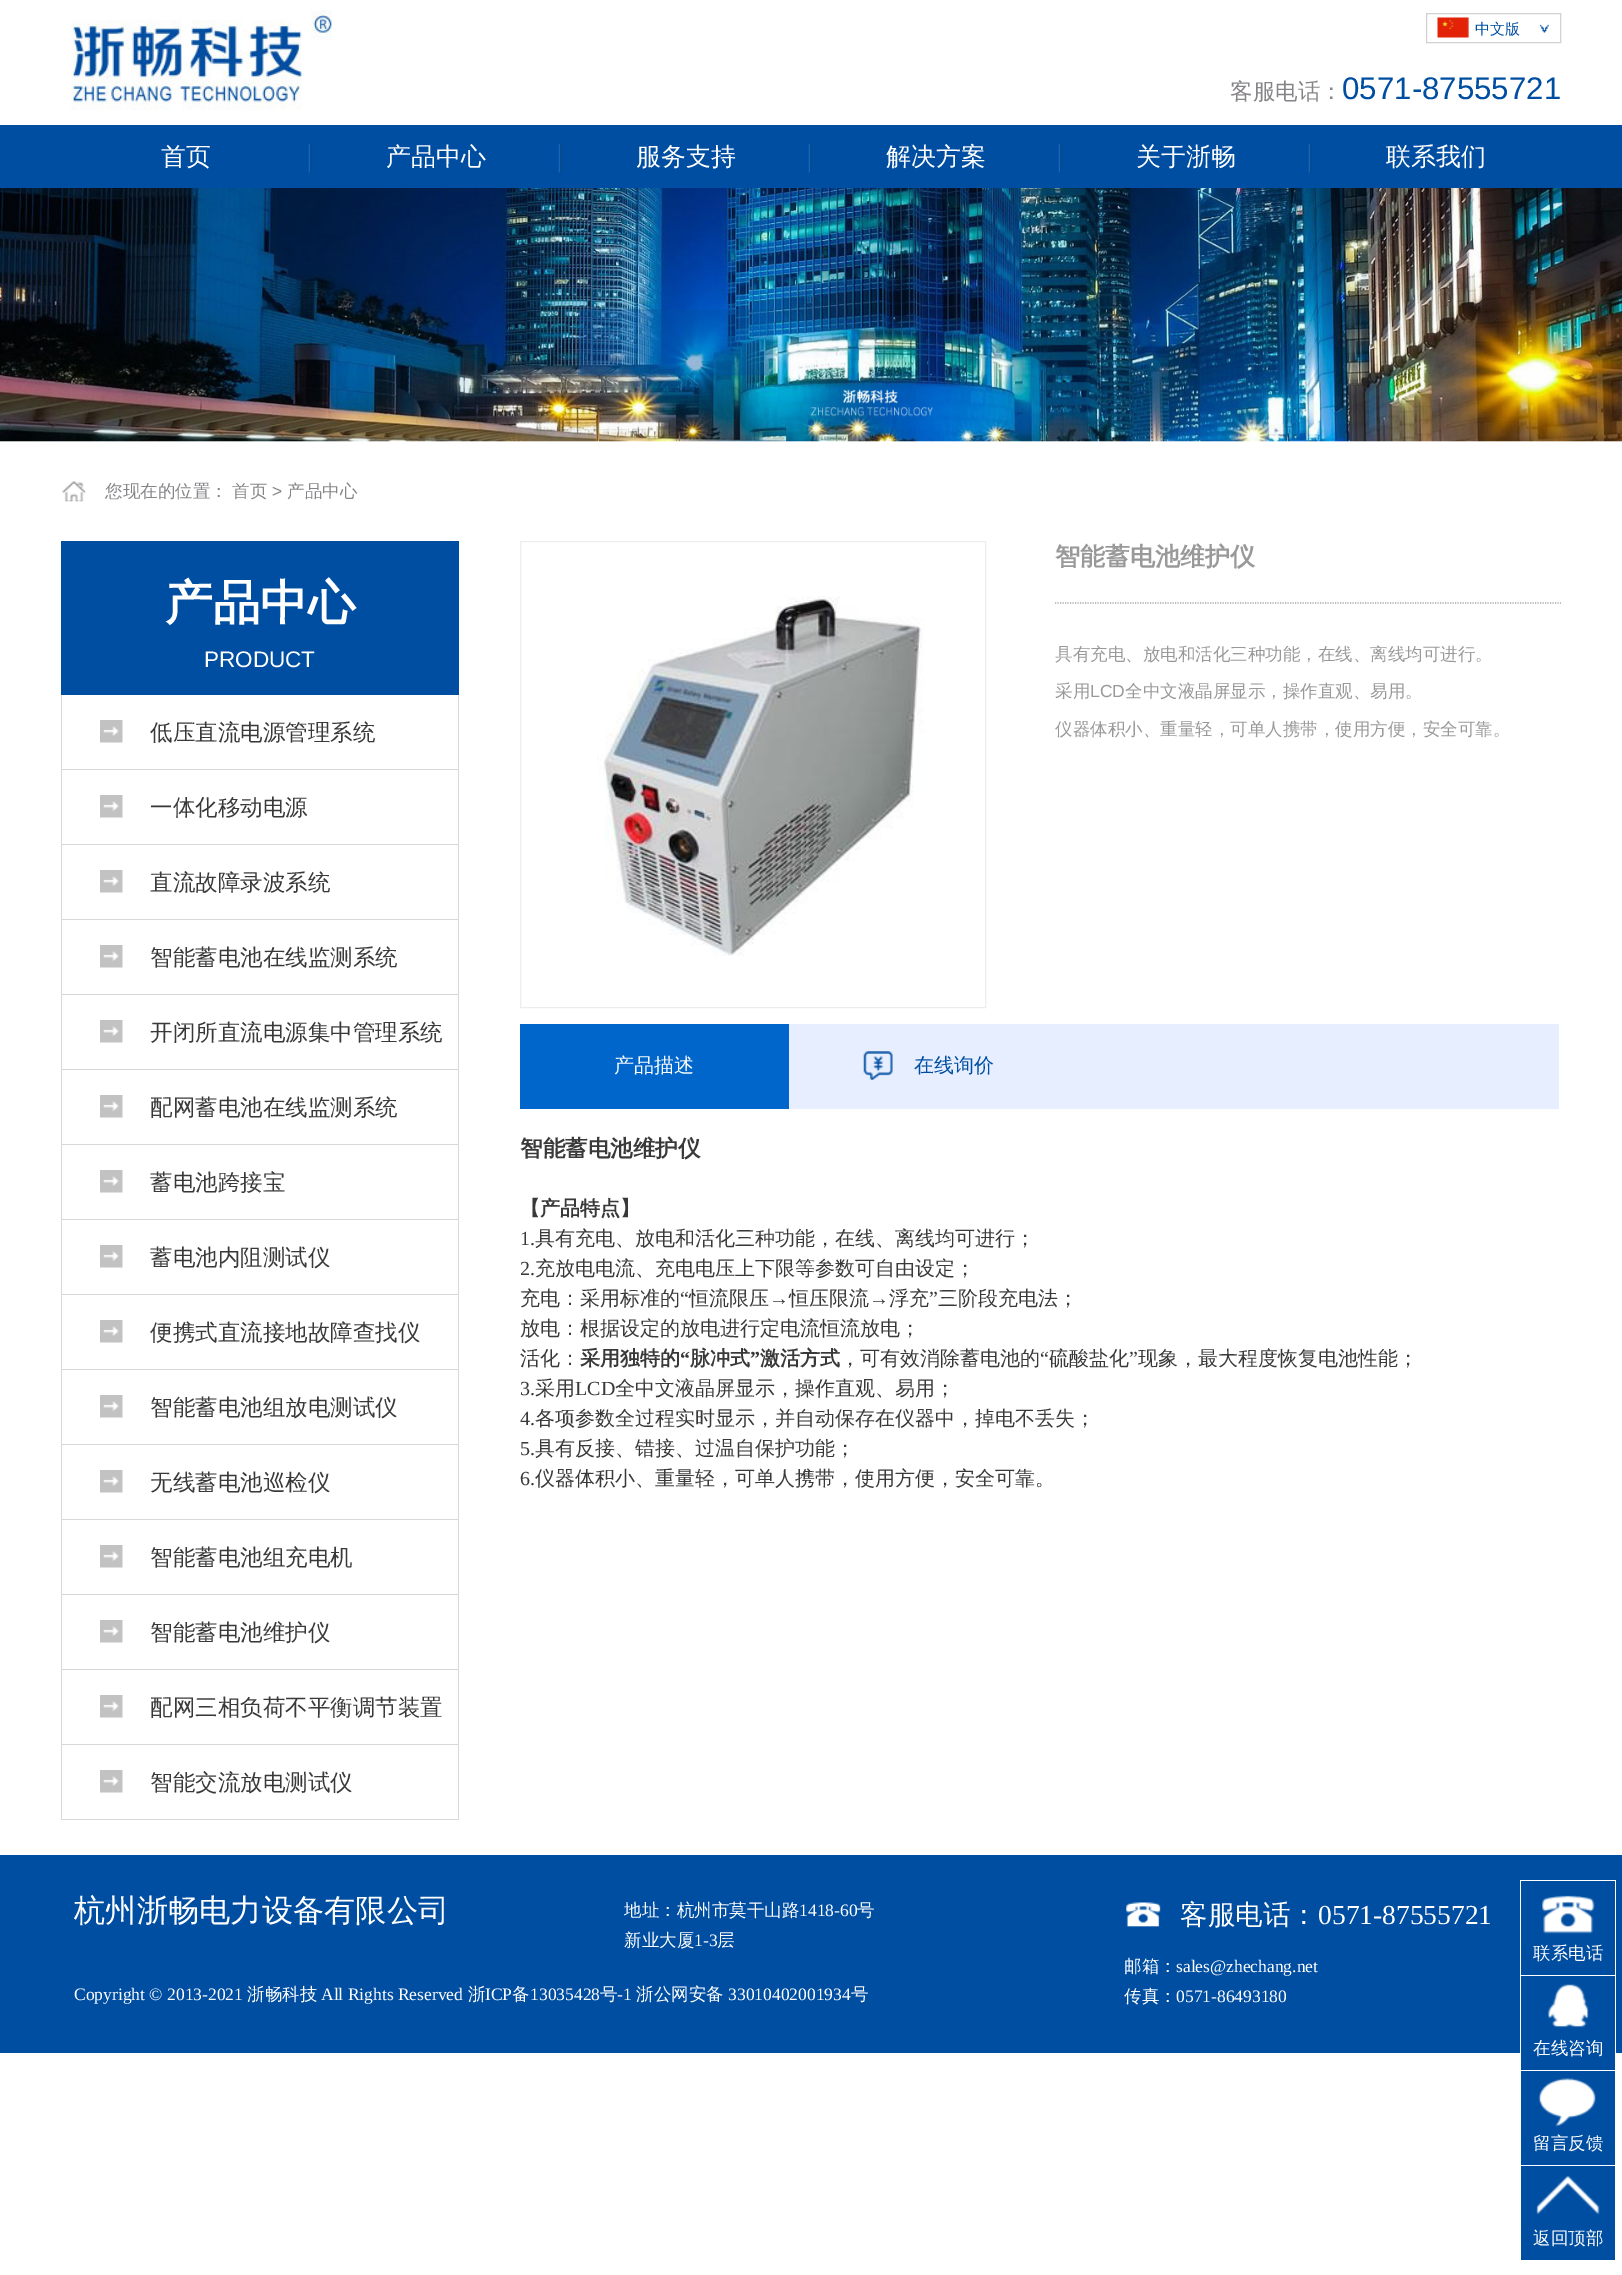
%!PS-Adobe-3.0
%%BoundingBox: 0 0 1622 2275
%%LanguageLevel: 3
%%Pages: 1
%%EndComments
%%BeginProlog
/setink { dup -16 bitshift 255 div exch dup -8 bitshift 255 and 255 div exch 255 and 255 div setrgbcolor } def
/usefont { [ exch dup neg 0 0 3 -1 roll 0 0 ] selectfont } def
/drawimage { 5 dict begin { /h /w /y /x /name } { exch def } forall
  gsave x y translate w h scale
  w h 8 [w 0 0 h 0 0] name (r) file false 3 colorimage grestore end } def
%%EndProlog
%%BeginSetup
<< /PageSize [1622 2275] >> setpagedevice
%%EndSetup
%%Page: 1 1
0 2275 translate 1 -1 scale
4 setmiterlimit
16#FFFFFF setink
0 0 1622 2275 rectfill
(img1.raw) 71 10 261 100 drawimage
(img2.raw) 1539 24 10 9 drawimage
16#D3D1D1 setink
1426.5 13.5 134 29 rectstroke
(img3.raw) 1437 17 32 21 drawimage
/WenQuanYiZenHei-Medium 15 usefont
16#004EA1 setink
1475 34 moveto (中文版) show
/WenQuanYiZenHei-Medium 22.5 usefont
16#868488 setink
1230 99 moveto (客服电话：) show
/LiberationSans-Regular 31.25 usefont
16#004EA1 setink
1342 99 moveto (0571-87555721) show
0 125 1622 63 rectfill
(img4.raw) 308 143 4 30 drawimage
/WenQuanYiZenHei-Medium 25 usefont
16#FFFFFF setink
161 165 moveto (首页) show
(img4.raw) 558 143 4 30 drawimage
386 165 moveto (产品中心) show
(img4.raw) 808 143 4 30 drawimage
636 165 moveto (服务支持) show
(img4.raw) 1058 143 4 30 drawimage
886 165 moveto (解决方案) show
(img4.raw) 1308 143 4 30 drawimage
1136 165 moveto (关于浙畅) show
1386 165 moveto (联系我们) show
(img5.raw) 0 188 1622 254 drawimage
(img6.raw) 808 419 7 7 drawimage
(img7.raw) 62 481 24 21 drawimage
/WenQuanYiZenHei-Medium 17.5 usefont
16#868488 setink
105 497 moveto (您现在的位置：) show
232 497 moveto (首页) show
/LiberationSans-Regular 17.5 usefont
272 497 moveto (>) show
/WenQuanYiZenHei-Medium 17.5 usefont
287 497 moveto (产品中心) show
16#004EA1 setink
61 541 398 154 rectfill
/WenQuanYiZenHei-Bold 47.5 usefont
16#FFFFFF setink
165 619 moveto (产品中心) show
/LiberationSans-Regular 22.5 usefont
204 667 moveto (PRODUCT) show
(img8.raw) 100 720 23 23 drawimage
[
    [458 695 1 1125 16#DBD7D7]
    [61 769 398 1 16#DBD7D7]
    [61 695 1 75 16#DBD7D7]
] { aload pop setink rectfill } forall
/WenQuanYiZenHei-Medium 22.5 usefont
16#3A3939 setink
150 740 moveto (低压直流电源管理系统) show
(img8.raw) 100 795 23 23 drawimage
16#DBD7D7 setink
61 844 398 1 rectfill
61 770 1 75 rectfill
16#3A3939 setink
150 815 moveto (一体化移动电源) show
(img8.raw) 100 870 23 23 drawimage
16#DBD7D7 setink
61 919 398 1 rectfill
61 845 1 75 rectfill
16#3A3939 setink
150 890 moveto (直流故障录波系统) show
(img8.raw) 100 945 23 23 drawimage
16#DBD7D7 setink
61 994 398 1 rectfill
61 920 1 75 rectfill
16#3A3939 setink
150 965 moveto (智能蓄电池在线监测系统) show
(img8.raw) 100 1020 23 23 drawimage
16#DBD7D7 setink
61 1069 398 1 rectfill
61 995 1 75 rectfill
16#3A3939 setink
150 1040 moveto (开闭所直流电源集中管理系统) show
(img8.raw) 100 1095 23 23 drawimage
16#DBD7D7 setink
61 1144 398 1 rectfill
61 1070 1 75 rectfill
16#3A3939 setink
150 1115 moveto (配网蓄电池在线监测系统) show
(img9.raw) 100 1170 23 23 drawimage
16#DBD7D7 setink
61 1219 398 1 rectfill
61 1145 1 75 rectfill
16#3A3939 setink
150 1190 moveto (蓄电池跨接宝) show
(img8.raw) 100 1245 23 23 drawimage
16#DBD7D7 setink
61 1294 398 1 rectfill
61 1220 1 75 rectfill
16#3A3939 setink
150 1265 moveto (蓄电池内阻测试仪) show
(img8.raw) 100 1320 23 23 drawimage
16#DBD7D7 setink
61 1369 398 1 rectfill
61 1295 1 75 rectfill
16#3A3939 setink
150 1340 moveto (便携式直流接地故障查找仪) show
(img8.raw) 100 1395 23 23 drawimage
16#DBD7D7 setink
61 1444 398 1 rectfill
61 1370 1 75 rectfill
16#3A3939 setink
150 1415 moveto (智能蓄电池组放电测试仪) show
(img8.raw) 100 1470 23 23 drawimage
16#DBD7D7 setink
61 1519 398 1 rectfill
61 1445 1 75 rectfill
16#3A3939 setink
150 1490 moveto (无线蓄电池巡检仪) show
(img8.raw) 100 1545 23 23 drawimage
16#DBD7D7 setink
61 1594 398 1 rectfill
61 1520 1 75 rectfill
16#3A3939 setink
150 1565 moveto (智能蓄电池组充电机) show
(img8.raw) 100 1620 23 23 drawimage
16#DBD7D7 setink
61 1669 398 1 rectfill
61 1595 1 75 rectfill
16#3A3939 setink
150 1640 moveto (智能蓄电池维护仪) show
(img8.raw) 100 1695 23 23 drawimage
16#DBD7D7 setink
61 1744 398 1 rectfill
61 1670 1 75 rectfill
16#3A3939 setink
150 1715 moveto (配网三相负荷不平衡调节装置) show
(img8.raw) 100 1770 23 23 drawimage
16#DBD7D7 setink
61 1819 398 1 rectfill
61 1745 1 75 rectfill
16#3A3939 setink
150 1790 moveto (智能交流放电测试仪) show
16#EDEDED setink
520.5 541.5 465 466 rectstroke
(img10.raw) 597 596 327 360 drawimage
16#A6A6A6 setink
1.2 setlinewidth
[1.25 1.25] 0 setdash
1055 603 moveto 1561 603 lineto stroke
/WenQuanYiZenHei-Bold 25 usefont
16#999999 setink
1055 565 moveto (智能蓄电池维护仪) show
/WenQuanYiZenHei-Medium 17.5 usefont
1055 660 moveto (具有充电、放电和活化三种功能，在线、离线均可进行。) show
1055 697 moveto (采用) show
/LiberationSans-Regular 17.5 usefont
1090 697 moveto (LCD) show
/WenQuanYiZenHei-Medium 17.5 usefont
1125 697 moveto (全中文液晶屏显示，操作直观、易用。) show
1055 735 moveto (仪器体积小、重量轻，可单人携带，使用方便，安全可靠。) show
16#E6EEFF setink
789 1024 770 85 rectfill
16#0066CC setink
520 1024 269 85 rectfill
/WenQuanYiZenHei-Medium 20 usefont
16#FFFFFF setink
614 1072 moveto (产品描述) show
(img11.raw) 863 1051 30 29 drawimage
16#004EA1 setink
914 1072 moveto (在线询价) show
/WenQuanYiZenHei-Bold 22.5 usefont
16#3A3939 setink
520 1156 moveto (智能蓄电池维护仪) show
/WenQuanYiZenHei-Bold 20 usefont
520 1215 moveto (【产品特点】) show
/LiberationSerif-Regular 20 usefont
520 1245 moveto (1.) show
/WenQuanYiZenHei-Medium 20 usefont
535 1245 moveto (具有充电、放电和活化三种功能，在线、离线均可进行；) show
/LiberationSerif-Regular 20 usefont
520 1275 moveto (2.) show
/WenQuanYiZenHei-Medium 20 usefont
535 1275 moveto (充放电电流、充电电压上下限等参数可自由设定；) show
520 1305 moveto (充电：采用标准的) show
/LiberationSerif-Regular 20 usefont
680 1305 moveto (“) show
/WenQuanYiZenHei-Medium 20 usefont
[
    [(恒流限压) 689 1305]
    [(恒压限流) 789 1305]
    [(浮充) 889 1305]
] { aload pop moveto show } forall
/LiberationSerif-Regular 20 usefont
929 1305 moveto (”) show
/WenQuanYiZenHei-Medium 20 usefont
938 1305 moveto (三阶段充电法；) show
/LiberationSerif-Regular 20 usefont
769 1305 moveto (→) show
869 1305 moveto (→) show
/WenQuanYiZenHei-Medium 20 usefont
520 1335 moveto (放电：根据设定的放电进行定电流恒流放电；) show
520 1365 moveto (活化：) show
/WenQuanYiZenHei-Bold 20 usefont
580 1365 moveto (采用独特的) show
/LiberationSerif-Bold 20 usefont
680 1365 moveto (“) show
/WenQuanYiZenHei-Bold 20 usefont
690 1365 moveto (脉冲式) show
/LiberationSerif-Bold 20 usefont
750 1365 moveto (”) show
/WenQuanYiZenHei-Bold 20 usefont
760 1365 moveto (激活方式) show
/WenQuanYiZenHei-Medium 20 usefont
840 1365 moveto (，可有效消除蓄电池的) show
/LiberationSerif-Regular 20 usefont
1040 1365 moveto (“) show
/WenQuanYiZenHei-Medium 20 usefont
1049 1365 moveto (硫酸盐化) show
/LiberationSerif-Regular 20 usefont
1129 1365 moveto (”) show
/WenQuanYiZenHei-Medium 20 usefont
1138 1365 moveto (现象，最大程度恢复电池性能；) show
/LiberationSerif-Regular 20 usefont
520 1395 moveto (3.) show
/WenQuanYiZenHei-Medium 20 usefont
535 1395 moveto (采用) show
/LiberationSerif-Regular 20 usefont
575 1395 moveto (LCD) show
/WenQuanYiZenHei-Medium 20 usefont
615 1395 moveto (全中文液晶屏显示，操作直观、易用；) show
/LiberationSerif-Regular 20 usefont
520 1425 moveto (4.) show
/WenQuanYiZenHei-Medium 20 usefont
535 1425 moveto (各项参数全过程实时显示，并自动保存在仪器中，掉电不丢失；) show
/LiberationSerif-Regular 20 usefont
520 1455 moveto (5.) show
/WenQuanYiZenHei-Medium 20 usefont
535 1455 moveto (具有反接、错接、过温自保护功能；) show
/LiberationSerif-Regular 20 usefont
520 1485 moveto (6.) show
/WenQuanYiZenHei-Medium 20 usefont
535 1485 moveto (仪器体积小、重量轻，可单人携带，使用方便，安全可靠。) show
16#004EA1 setink
0 1855 1622 198 rectfill
/WenQuanYiZenHei-Medium 31.25 usefont
16#FFFFFF setink
74 1921 moveto (杭州浙畅电力设备有限公司) show
/WenQuanYiZenHei-Medium 17.5 usefont
624 1916 moveto (地址：杭州市莫干山路) show
/LiberationSerif-Regular 17.5 usefont
799 1916 moveto (1418-60) show
/WenQuanYiZenHei-Medium 17.5 usefont
857 1916 moveto (号) show
624 1946 moveto (新业大厦) show
/LiberationSerif-Regular 17.5 usefont
694 1946 moveto (1-3) show
/WenQuanYiZenHei-Medium 17.5 usefont
717 1946 moveto (层) show
(img12.raw) 1126 1902 35 25 drawimage
/WenQuanYiZenHei-Medium 27.5 usefont
1180 1924 moveto (客服电话：) show
/LiberationSerif-Regular 27.5 usefont
1318 1924 moveto (0571-87555721) show
/WenQuanYiZenHei-Medium 17.5 usefont
1124 1972 moveto (邮箱：) show
/LiberationSerif-Regular 17.5 usefont
1176 1972 moveto (sales@zhechang.net) show
/WenQuanYiZenHei-Medium 17.5 usefont
1124 2002 moveto (传真：) show
/LiberationSerif-Regular 17.5 usefont
1176 2002 moveto (0571-86493180) show
74 2000 moveto (Copyright © 2013-2021) show
/WenQuanYiZenHei-Medium 17.5 usefont
247 2000 moveto (浙畅科技) show
/LiberationSerif-Regular 17.5 usefont
321 2000 moveto (All Rights Reserved) show
/WenQuanYiZenHei-Medium 17.5 usefont
468 2000 moveto (浙) show
/LiberationSerif-Regular 17.5 usefont
485 2000 moveto (ICP) show
/WenQuanYiZenHei-Medium 17.5 usefont
512 2000 moveto (备) show
/LiberationSerif-Regular 17.5 usefont
530 2000 moveto (13035428) show
/WenQuanYiZenHei-Medium 17.5 usefont
600 2000 moveto (号) show
/LiberationSerif-Regular 17.5 usefont
617 2000 moveto (-1) show
/WenQuanYiZenHei-Medium 17.5 usefont
636 2000 moveto (浙公网安备) show
/LiberationSerif-Regular 17.5 usefont
728 2000 moveto (33010402001934) show
/WenQuanYiZenHei-Medium 17.5 usefont
851 2000 moveto (号) show
1520 1880 96 173 rectfill
16#004EA1 setink
1521 1881 94 94 rectfill
(img13.raw) 1542 1895 53 39 drawimage
16#FFFFFF setink
1533 1959 moveto (联系电话) show
16#004EA1 setink
1521 1976 94 94 rectfill
(img14.raw) 1548 1984 41 44 drawimage
16#FFFFFF setink
1533 2054 moveto (在线咨询) show
16#004EA1 setink
1521 2071 94 94 rectfill
(img15.raw) 1538 2078 58 49 drawimage
16#FFFFFF setink
1533 2149 moveto (留言反馈) show
16#004EA1 setink
1521 2166 94 94 rectfill
(img16.raw) 1536 2176 64 39 drawimage
16#FFFFFF setink
1533 2244 moveto (返回顶部) show
showpage
%%EOF
